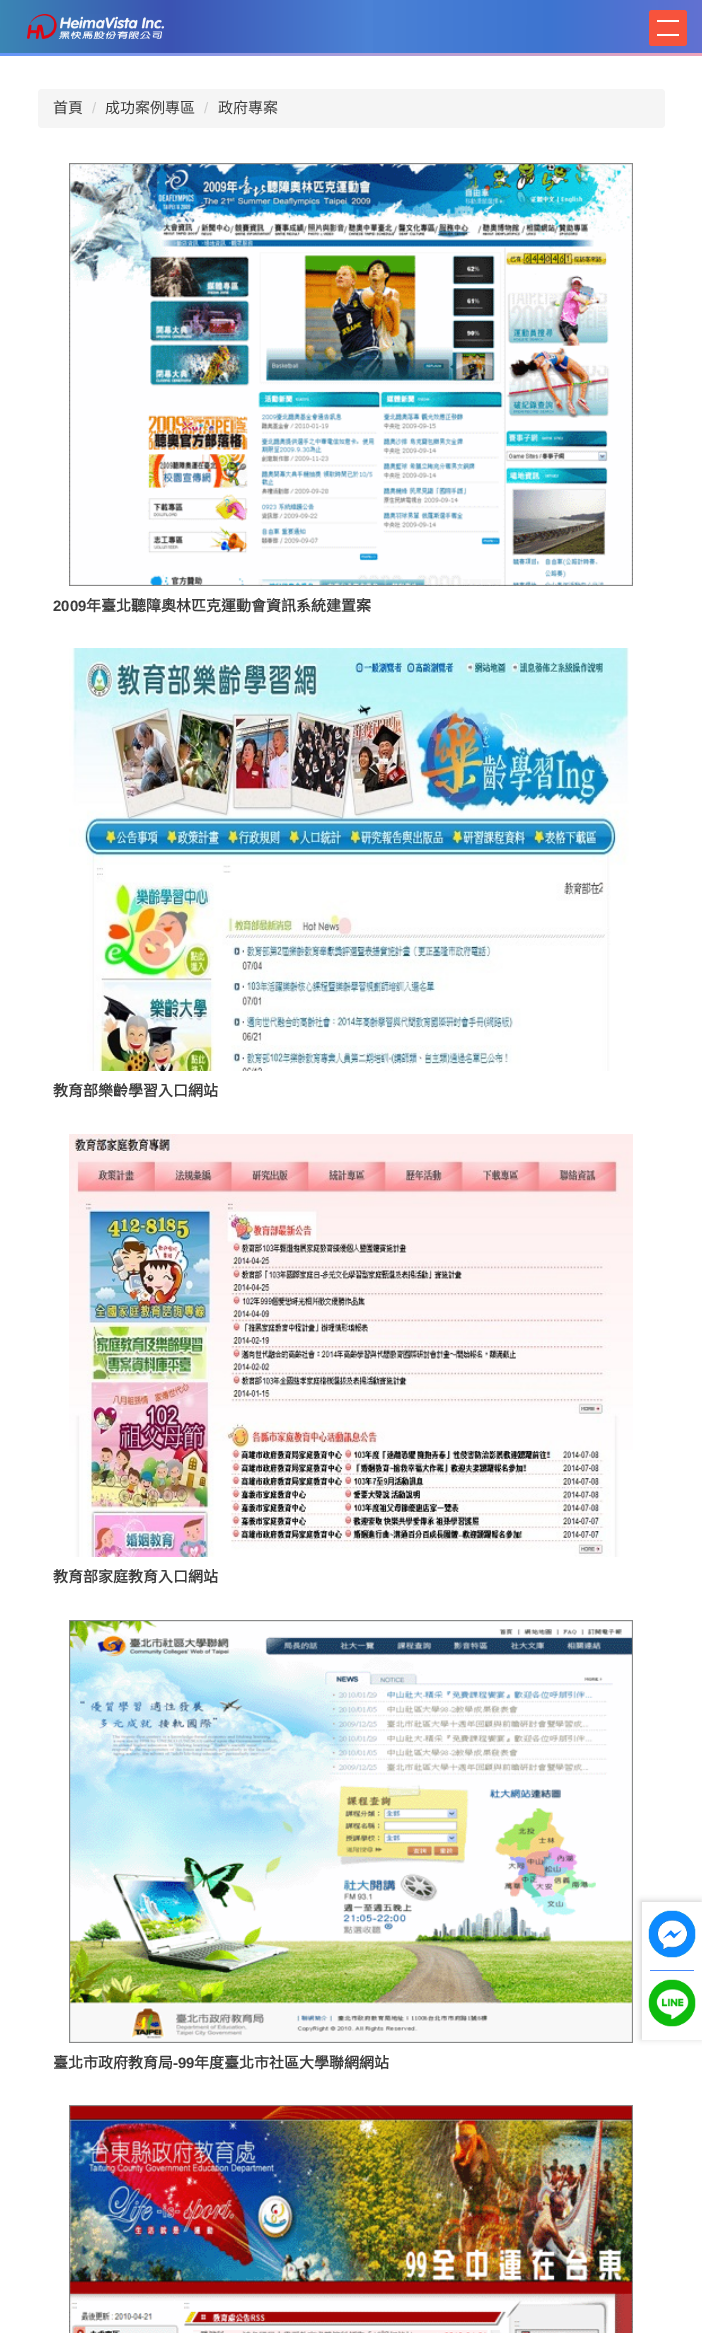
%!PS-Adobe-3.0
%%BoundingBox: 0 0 702 2333
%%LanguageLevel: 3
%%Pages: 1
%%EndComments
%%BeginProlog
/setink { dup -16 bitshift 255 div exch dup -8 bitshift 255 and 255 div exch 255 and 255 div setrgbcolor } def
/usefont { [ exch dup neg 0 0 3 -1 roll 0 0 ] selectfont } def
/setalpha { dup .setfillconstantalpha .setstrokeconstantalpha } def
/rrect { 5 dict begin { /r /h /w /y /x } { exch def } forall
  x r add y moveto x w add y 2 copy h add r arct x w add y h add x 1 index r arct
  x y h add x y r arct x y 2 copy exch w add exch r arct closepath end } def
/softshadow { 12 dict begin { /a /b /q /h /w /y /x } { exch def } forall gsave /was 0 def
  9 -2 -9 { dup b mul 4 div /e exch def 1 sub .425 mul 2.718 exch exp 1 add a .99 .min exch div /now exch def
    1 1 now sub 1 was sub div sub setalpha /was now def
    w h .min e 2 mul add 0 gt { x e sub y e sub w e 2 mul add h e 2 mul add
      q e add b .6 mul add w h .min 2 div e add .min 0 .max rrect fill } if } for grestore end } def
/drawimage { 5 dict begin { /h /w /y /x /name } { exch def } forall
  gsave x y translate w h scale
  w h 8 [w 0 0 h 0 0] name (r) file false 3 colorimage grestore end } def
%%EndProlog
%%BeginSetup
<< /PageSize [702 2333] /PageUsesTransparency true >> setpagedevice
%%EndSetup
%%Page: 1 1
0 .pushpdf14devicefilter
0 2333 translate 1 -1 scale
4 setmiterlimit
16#FFFFFF setink
0 0 702 2333 rectfill
gsave 0 0 moveto 702 0 lineto 702 56 lineto 0 56 lineto closepath clip newpath
<< /ShadingType 2 /ColorSpace /DeviceRGB /Coords [702 27 0 26] /Extend [true true] /Function << /FunctionType 3 /Domain [0 1] /Functions [<< /FunctionType 2 /Domain [0 1] /C0 [0.384 0.443 0.824] /C1 [0.239 0.455 0.816] /N 1 >> << /FunctionType 2 /Domain [0 1] /C0 [0.239 0.455 0.816] /C1 [0.294 0.51 0.839] /N 1 >> << /FunctionType 2 /Domain [0 1] /C0 [0.294 0.51 0.839] /C1 [0.231 0.325 0.702] /N 1 >> << /FunctionType 2 /Domain [0 1] /C0 [0.231 0.325 0.702] /C1 [0.227 0.525 0.71] /N 1 >>] /Bounds [0.22 0.48 0.76] /Encode [0 1 0 1 0 1 0 1] >> >> shfill grestore
(img1.raw) 0 53 702 3 drawimage
(img2.raw) 27 14 137 25 drawimage
16#F7533C setink
649 10 38 36 3 rrect fill
16#FFFFFF setink
657 20 22 2 rectfill
657 34 22 2 rectfill
16#F5F5F5 setink
38 89 627 39 4 rrect fill
/NotoSansCJKTC-Regular 15 usefont
16#3C3C3C setink
53 113 moveto (首頁) show
/LiberationSans-Regular 15 usefont
16#CCCCCC setink
92 113 moveto (/) show
/NotoSansCJKTC-Regular 15 usefont
16#3C3C3C setink
105 113 moveto (成功案例專區) show
/LiberationSans-Regular 15 usefont
16#CCCCCC setink
204 113 moveto (/) show
/NotoSansCJKTC-Regular 15 usefont
16#3C3C3C setink
218 113 moveto (政府專案) show
(img3.raw) 69 163 564 423 drawimage
/LiberationSans-Bold 15 usefont
53 611 moveto (2009) show
/NotoSansCJKTC-Bold 15 usefont
86 611 moveto (年臺北聽障奧林匹克運動會資訊系統建置案) show
(img4.raw) 69 648 560 423 drawimage
53 1096 moveto (教育部樂齡學習入口網站) show
(img5.raw) 69 1134 564 423 drawimage
53 1582 moveto (教育部家庭教育入口網站) show
(img6.raw) 69 1620 564 423 drawimage
53 2068 moveto (臺北市政府教育局) show
/LiberationSans-Bold 15 usefont
173 2068 moveto (-99) show
/NotoSansCJKTC-Bold 15 usefont
194 2068 moveto (年度臺北市社區大學聯網網站) show
(img7.raw) 69 2105 564 228 drawimage
gsave
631 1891 moveto 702 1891 lineto 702 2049 lineto 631 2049 lineto closepath 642 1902 moveto 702 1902 lineto 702 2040 lineto 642 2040 lineto closepath eoclip newpath
16#0D0D0D setink
641 1901 60 138 0 3 0.2 softshadow
grestore
(img8.raw) 648 1910 48 48 drawimage
16#4688FC setink
650 1970 44 1 rectfill
(img9.raw) 648 1979 48 48 drawimage
.poppdf14devicefilter showpage
%%EOF
